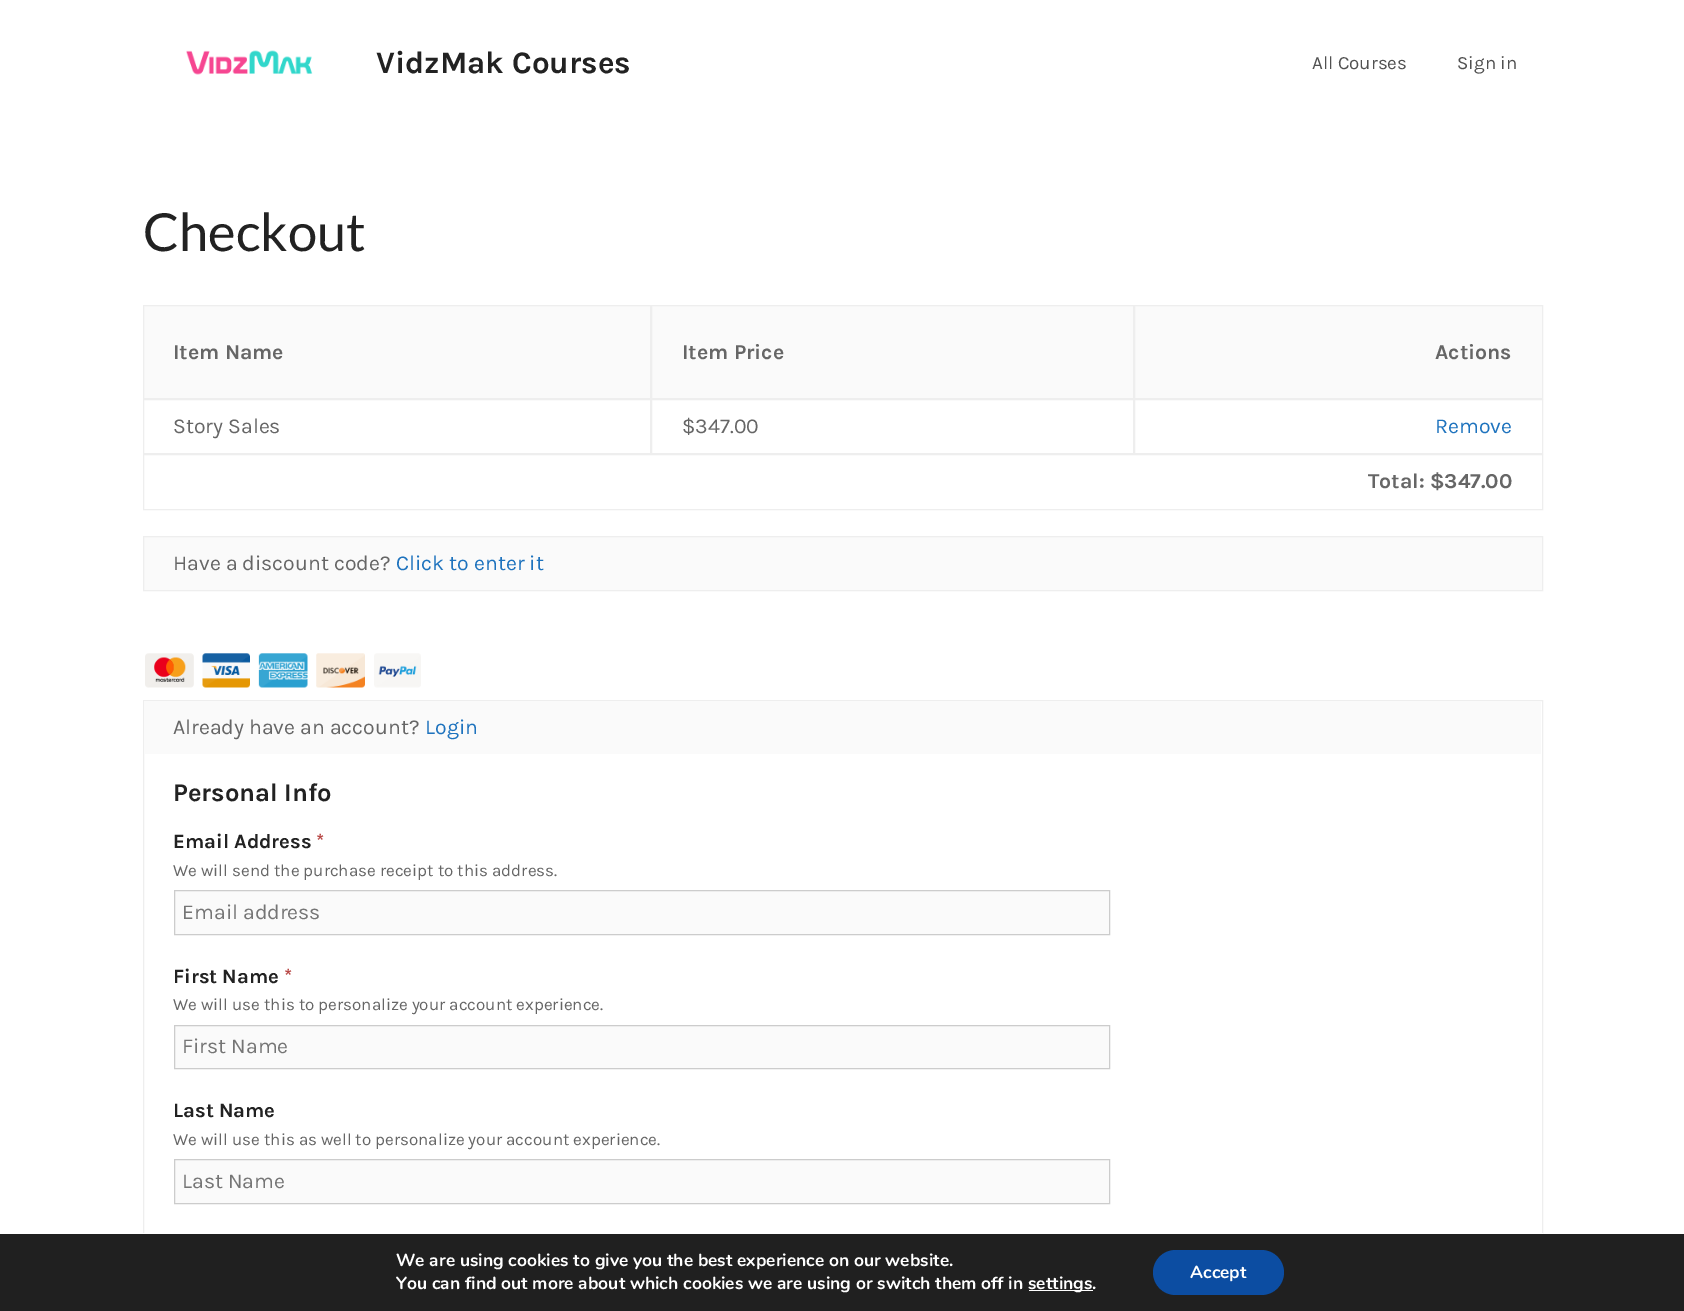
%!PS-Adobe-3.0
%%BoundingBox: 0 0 1684 1311
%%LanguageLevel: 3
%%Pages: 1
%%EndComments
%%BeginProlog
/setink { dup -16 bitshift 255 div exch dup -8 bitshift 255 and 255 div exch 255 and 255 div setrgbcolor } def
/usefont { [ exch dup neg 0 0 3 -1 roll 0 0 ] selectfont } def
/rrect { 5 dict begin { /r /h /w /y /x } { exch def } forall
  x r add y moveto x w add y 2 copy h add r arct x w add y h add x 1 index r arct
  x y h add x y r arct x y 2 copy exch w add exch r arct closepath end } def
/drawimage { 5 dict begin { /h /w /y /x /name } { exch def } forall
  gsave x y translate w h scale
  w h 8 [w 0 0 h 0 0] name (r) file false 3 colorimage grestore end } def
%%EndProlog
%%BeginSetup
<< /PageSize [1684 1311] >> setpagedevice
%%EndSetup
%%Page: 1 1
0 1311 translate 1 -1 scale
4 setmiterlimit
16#FFFFFF setink
0 0 1684 1311 rectfill
(img1.raw) 186 50 127 25 drawimage
/Karla-Bold 31.25 usefont
16#222222 setink
376 73 moveto (VidzMak Courses) show
/Karla-Regular 18.75 usefont
16#515151 setink
1312 69 moveto (All Courses) show
1457 69 moveto (Sign in) show
/Lato-Regular 52.5 usefont
16#222222 setink
143 251 moveto (Checkout) show
16#FAFAFA setink
143.5 305.5 moveto 650.5 305.5 lineto 650.5 398.5 lineto 143.5 398.5 lineto closepath gsave fill grestore
16#EEEEEE setink
stroke
/Karla-Bold 21.25 usefont
16#666666 setink
173 359 moveto (Item Name) show
16#FAFAFA setink
651.5 305.5 moveto 1133.5 305.5 lineto 1133.5 398.5 lineto 651.5 398.5 lineto closepath gsave fill grestore
16#EEEEEE setink
stroke
16#666666 setink
682 359 moveto (Item Price) show
16#FAFAFA setink
1134.5 305.5 moveto 1542.5 305.5 lineto 1542.5 398.5 lineto 1134.5 398.5 lineto closepath gsave fill grestore
16#EEEEEE setink
stroke
16#666666 setink
1435 359 moveto (Actions) show
16#EEEEEE setink
143.5 399.5 507 54 rectstroke
/Karla-Regular 21.25 usefont
16#666666 setink
173 433 moveto (Story Sales) show
16#EEEEEE setink
651.5 399.5 482 54 rectstroke
16#666666 setink
682 433 moveto ($347.00) show
16#EEEEEE setink
1134.5 399.5 408 54 rectstroke
16#1E73BE setink
1435 433 moveto (Remove) show
16#EEEEEE setink
143.5 454.5 1399 55 rectstroke
/Karla-Bold 21.25 usefont
16#666666 setink
1368 488 moveto (Total: $347.00) show
16#FAFAFA setink
143.5 536.5 moveto 1542.5 536.5 lineto 1542.5 590.5 lineto 143.5 590.5 lineto closepath gsave fill grestore
16#EEEEEE setink
stroke
/Karla-Regular 21.25 usefont
16#666666 setink
173 570 moveto (Have a discount code?) show
16#1E73BE setink
396 570 moveto (Click to enter it) show
(img2.raw) 145 653 49 35 drawimage
(img3.raw) 202 653 48 35 drawimage
(img4.raw) 258 653 50 35 drawimage
(img5.raw) 316 653 49 35 drawimage
(img6.raw) 374 653 47 35 drawimage
16#EEEEEE setink
143.5 700.5 1399 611 rectstroke
16#FAFAFA setink
144 701 1397 53 rectfill
16#666666 setink
173 734 moveto (Already have an account?) show
16#1E73BE setink
425 734 moveto (Login) show
/Karla-Bold 25.5 usefont
16#222222 setink
173 801 moveto (Personal Info) show
/Karla-Bold 20.25 usefont
173 848 moveto (Email Address) show
16#B94A48 setink
316 848 moveto (*) show
/Karla-Regular 17 usefont
16#666666 setink
173 876 moveto (We will send the purchase receipt to this address.) show
16#FAFAFA setink
174.5 890.5 moveto 1109.5 890.5 lineto 1109.5 934.5 lineto 174.5 934.5 lineto closepath gsave fill grestore
16#CCCCCC setink
stroke
/Karla-Regular 21.25 usefont
16#757575 setink
182 919 moveto (Email address) show
/Karla-Bold 20.25 usefont
16#222222 setink
173 983 moveto (First Name) show
16#B94A48 setink
284 983 moveto (*) show
/Karla-Regular 17 usefont
16#666666 setink
173 1010 moveto (We will use this to personalize your account experience.) show
16#FAFAFA setink
174.5 1025.5 moveto 1109.5 1025.5 lineto 1109.5 1068.5 lineto 174.5 1068.5 lineto closepath gsave fill grestore
16#CCCCCC setink
stroke
/Karla-Regular 21.25 usefont
16#757575 setink
182 1053 moveto (First Name) show
/Karla-Bold 20.25 usefont
16#222222 setink
173 1117 moveto (Last Name) show
/Karla-Regular 17 usefont
16#666666 setink
173 1145 moveto (We will use this as well to personalize your account experience.) show
16#FAFAFA setink
174.5 1159.5 moveto 1109.5 1159.5 lineto 1109.5 1203.5 lineto 174.5 1203.5 lineto closepath gsave fill grestore
16#CCCCCC setink
stroke
/Karla-Regular 21.25 usefont
16#757575 setink
182 1188 moveto (Last Name) show
16#202020 setink
0 1234 1684 77 rectfill
16#FFFFFF setink
143 1233 1400 1 rectfill
/Nunito-Bold 17.5 usefont
396 1266 moveto (We are using cookies to give you the best experience on our website.) show
396 1289 moveto (You can find out more about which cookies we are using or switch them off in) show
1029 1290 64 1 rectfill
1028 1289 moveto (settings.) show
16#0C4DA2 setink
1153 1250 131 45 22.5 rrect fill
16#FFFFFF setink
1190 1278 moveto (Accept) show
showpage
%%EOF
